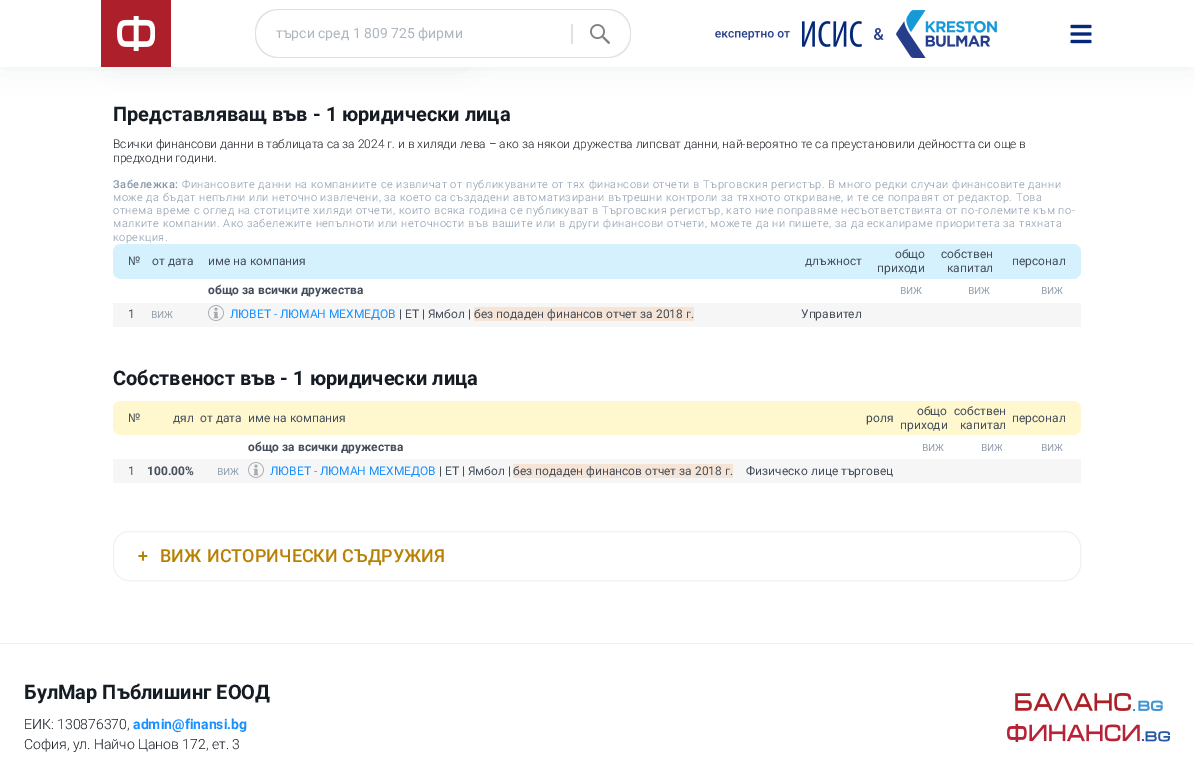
%!PS-Adobe-3.0
%%BoundingBox: 0 0 1194 758
%%LanguageLevel: 3
%%Pages: 1
%%EndComments
%%BeginProlog
/setink { dup -16 bitshift 255 div exch dup -8 bitshift 255 and 255 div exch 255 and 255 div setrgbcolor } def
/usefont { [ exch dup neg 0 0 3 -1 roll 0 0 ] selectfont } def
/setalpha { dup .setfillconstantalpha .setstrokeconstantalpha } def
/rrect { 5 dict begin { /r /h /w /y /x } { exch def } forall
  x r add y moveto x w add y 2 copy h add r arct x w add y h add x 1 index r arct
  x y h add x y r arct x y 2 copy exch w add exch r arct closepath end } def
/softshadow { 12 dict begin { /a /b /q /h /w /y /x } { exch def } forall gsave /was 0 def
  9 -2 -9 { dup b mul 4 div /e exch def 1 sub .425 mul 2.718 exch exp 1 add a .99 .min exch div /now exch def
    1 1 now sub 1 was sub div sub setalpha /was now def
    w h .min e 2 mul add 0 gt { x e sub y e sub w e 2 mul add h e 2 mul add
      q e add b .6 mul add w h .min 2 div e add .min 0 .max rrect fill } if } for grestore end } def
/drawimage { 5 dict begin { /h /w /y /x /name } { exch def } forall
  gsave x y translate w h scale
  w h 8 [w 0 0 h 0 0] name (r) file false 3 colorimage grestore end } def
%%EndProlog
%%BeginSetup
<< /PageSize [1194 758] /PageUsesTransparency true >> setpagedevice
%%EndSetup
%%Page: 1 1
0 .pushpdf14devicefilter
0 758 translate 1 -1 scale
4 setmiterlimit
16#FFFFFF setink
0 0 1194 758 rectfill
16#8898AA setink
0 0 1194 67 0 16 0.15 softshadow
113 18 355 45 4 16 0.15 softshadow
16#FFFFFF setink
0 0 1194 67 rectfill
16#AE1F2C setink
101 0 70 67 rectfill
(img1.raw) 117 16 38 35 drawimage
16#DEE2E6 setink
278 9 moveto 552 9 lineto 552 58 lineto 278 58 lineto 265 58 255 48 255 35 curveto 255 32 lineto 255 19 265 9 278 9 curveto closepath 278 10 moveto 552 10 lineto 552 57 lineto 278 57 lineto 266 57 256 47 256 35 curveto 256 32 lineto 256 20 266 10 278 10 curveto closepath eofill
/Roboto-Regular 14 usefont
16#ADB5BD setink
276 38 moveto (търси сред 1 809 725 фирми) show
16#FFFFFF setink
551 9 moveto 608 9 lineto 620.5 9 631 19.5 631 32 curveto 631 35 lineto 631 47.5 620.5 58 608 58 curveto 551 58 lineto closepath fill
16#DEE2E6 setink
551 9 moveto 608 9 lineto 621 9 631 19 631 32 curveto 631 35 lineto 631 48 621 58 608 58 curveto 551 58 lineto closepath 551 10 moveto 608 10 lineto 620 10 630 20 630 32 curveto 630 35 lineto 630 47 620 57 608 57 curveto 551 57 lineto closepath eofill
571 24 2 20 rectfill
(img2.raw) 590 24 20 20 drawimage
(img3.raw) 715 31 75 9 drawimage
(img4.raw) 802 21 60 26 drawimage
(img5.raw) 874 28 10 12 drawimage
(img6.raw) 896 10 101 48 drawimage
(img7.raw) 1070 24 22 20 drawimage
/Roboto-Bold 20 usefont
16#161C24 setink
113 121 moveto (Представляващ във - 1 юридически лица) show
/Roboto-Light 12 usefont
113 148 moveto (Всички финансови данни в таблицата са за 2024 г. и в хиляди лева – ако за някои дружества липсват данни, най-вероятно те са преустановили дейността си още в) show
113 162 moveto (предходни години.) show
/Roboto-Medium 11 usefont
16#8898AA setink
113 188 moveto 0.5 0 (Забележка:) ashow
/Roboto-Light 11 usefont
182 188 moveto 0.5 0 (Финансовите данни на компаниите се извличат от публикуваните от тях финансови отчети в Търговския регистър. В много редки случаи финансовите данни) ashow
113 201 moveto 0.5 0 (може да бъдат непълни или неточно извлечени, за което са създадени автоматизирани вътрешни контроли за тяхното откриване, и те се поправят от редактор. Това) ashow
113 214 moveto 0.5 0 (отнема време с оглед на стотиците хиляди отчети, които всяка година се публикуват в Търговския регистър, като ние поправяме несъответствията от по-големите към по-) ashow
113 227 moveto 0.5 0 (малките компании. Ако забележите непълноти или неточности във вашите или в други финансови отчети, можете да ни пишете, за да ескалираме приоритета за тяхната) ashow
113 241 moveto 0.5 0 (корекция.) ashow
16#D6F1FE setink
121 244 moveto 149 244 lineto 149 279 lineto 121 279 lineto 116.5 279 113 275.5 113 271 curveto 113 252 lineto 113 247.5 116.5 244 121 244 curveto closepath fill
/Roboto-Regular 12 usefont
16#454F5B setink
128 265 moveto (№) show
16#D6F1FE setink
149 244 847 35 rectfill
16#454F5B setink
[
    [(от дата) 152 265]
    [(име на компания) 208 265]
    [(длъжност) 805 265]
    [(общо) 895 258]
    [(приходи) 877 272]
    [(собствен) 941 258]
    [(капитал) 947 272]
] { aload pop moveto show } forall
16#D6F1FE setink
996 244 moveto 1073 244 lineto 1077.5 244 1081 247.5 1081 252 curveto 1081 271 lineto 1081 275.5 1077.5 279 1073 279 curveto 996 279 lineto closepath fill
16#454F5B setink
1012 265 moveto (персонал) show
/Roboto-Bold 12 usefont
208 294 moveto (общо за всички дружества) show
(img8.raw) 901 287 21 7 drawimage
(img8.raw) 969 287 21 7 drawimage
(img8.raw) 1042 287 21 7 drawimage
16#F6F6F6 setink
113 303 968 24 rectfill
/Roboto-Regular 12 usefont
16#454F5B setink
128 318 moveto (1) show
(img9.raw) 152 311 21 7 drawimage
(img10.raw) 208 305 16 16 drawimage
16#1890FF setink
230 318 moveto (ЛЮВЕТ - ЛЮМАН МЕХМЕДОВ) show
16#454F5B setink
399 318 moveto (| ЕТ | Ямбол |) show
16#F6E5D7 setink
474 307 220 14 rectfill
16#454F5B setink
474 318 moveto (без подаден финансов отчет за 2018 г.) show
801 318 moveto (Управител) show
/Roboto-Bold 20 usefont
16#161C24 setink
113 385 moveto (Собственост във - 1 юридически лица) show
16#FFF7CD setink
121 401 moveto 144 401 lineto 144 435 lineto 121 435 lineto 116.5 435 113 431.5 113 427 curveto 113 409 lineto 113 404.5 116.5 401 121 401 curveto closepath fill
/Roboto-Regular 12 usefont
16#454F5B setink
128 422 moveto (№) show
16#FFF7CD setink
144 401 865 34 rectfill
16#454F5B setink
[
    [(дял) 173 422]
    [(от дата) 200 422]
    [(име на компания) 248 422]
    [(роля) 866 422]
    [(общо) 917 415]
    [(приходи) 900 429]
    [(собствен) 954 415]
    [(капитал) 960 429]
] { aload pop moveto show } forall
16#FFF7CD setink
1009 401 moveto 1073 401 lineto 1077.5 401 1081 404.5 1081 409 curveto 1081 427 lineto 1081 431.5 1077.5 435 1073 435 curveto 1009 435 lineto closepath fill
16#454F5B setink
1012 422 moveto (персонал) show
/Roboto-Bold 12 usefont
248 451 moveto (общо за всички дружества) show
(img8.raw) 923 444 21 7 drawimage
(img11.raw) 982 444 20 7 drawimage
(img8.raw) 1042 444 21 7 drawimage
16#F6F6F6 setink
113 459 968 24 rectfill
/Roboto-Regular 12 usefont
16#454F5B setink
128 475 moveto (1) show
/Roboto-Bold 12 usefont
147 475 moveto (100.00%) show
(img9.raw) 218 468 21 7 drawimage
(img10.raw) 248 462 16 16 drawimage
/Roboto-Regular 12 usefont
16#1890FF setink
270 475 moveto (ЛЮВЕТ - ЛЮМАН МЕХМЕДОВ) show
16#454F5B setink
439 475 moveto (| ЕТ | Ямбол |) show
16#F6E5D7 setink
513 464 220 14 rectfill
16#454F5B setink
513 475 moveto (без подаден финансов отчет за 2018 г.) show
746 475 moveto (Физическо лице търговец) show
16#F1F1F1 setink
113.5 531.5 967 49 15.5 rrect stroke
/Roboto-Medium 18 usefont
16#B78103 setink
[
    [(+) 138 562]
    [(ВИЖ) 160 562]
    [(ИСТОРИЧЕСКИ СЪДРУЖИЯ) 207 562]
] { aload pop moveto show } forall
16#F1F1F1 setink
0 643 1194 1 rectfill
/Roboto-Bold 20 usefont
16#161C24 setink
24 699 moveto (БулМар Пъблишинг ЕООД) show
/Roboto-Light 14 usefont
24 729 moveto (ЕИК: 130876370,) show
/Roboto-Bold 14 usefont
16#1890FF setink
133 729 moveto (admin@finansi.bg) show
/Roboto-Light 14 usefont
16#161C24 setink
24 749 moveto (София, ул. Найчо Цанов 172, ет. 3) show
(img12.raw) 1015 693 148 18 drawimage
(img13.raw) 1007 724 163 18 drawimage
.poppdf14devicefilter showpage
%%EOF
